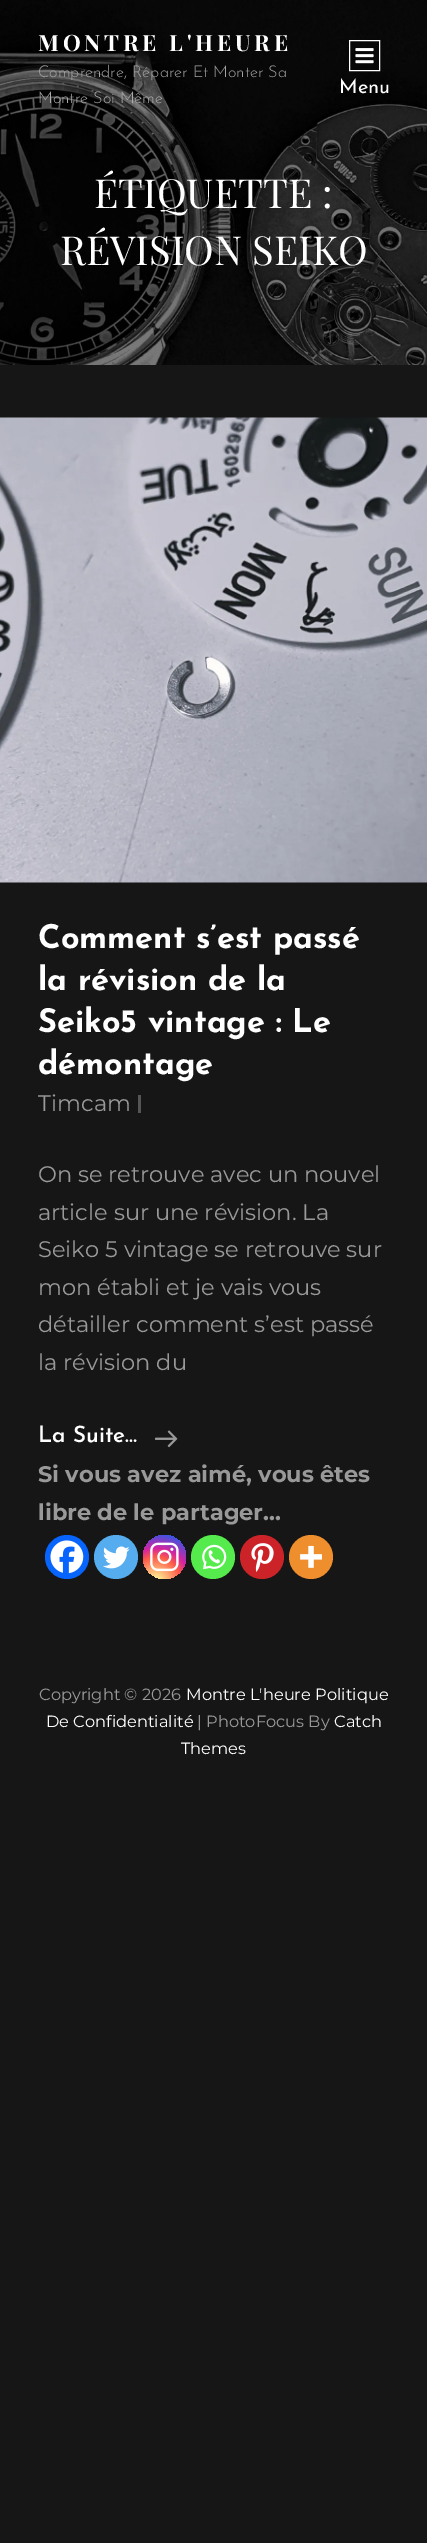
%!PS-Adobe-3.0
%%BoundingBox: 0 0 427 2543
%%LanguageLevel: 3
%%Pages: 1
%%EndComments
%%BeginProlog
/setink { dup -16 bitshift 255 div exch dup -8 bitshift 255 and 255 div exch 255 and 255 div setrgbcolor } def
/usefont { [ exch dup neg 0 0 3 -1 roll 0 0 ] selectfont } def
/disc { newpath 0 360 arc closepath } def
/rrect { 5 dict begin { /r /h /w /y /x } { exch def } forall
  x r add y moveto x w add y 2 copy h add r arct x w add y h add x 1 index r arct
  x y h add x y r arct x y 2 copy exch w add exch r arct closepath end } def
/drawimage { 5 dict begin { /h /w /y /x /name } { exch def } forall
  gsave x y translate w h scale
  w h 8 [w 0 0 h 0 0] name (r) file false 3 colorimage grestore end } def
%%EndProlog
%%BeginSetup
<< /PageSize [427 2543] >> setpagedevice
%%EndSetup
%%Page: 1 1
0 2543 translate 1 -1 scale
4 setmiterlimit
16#161616 setink
0 0 427 2543 rectfill
(img2.raw) 0 0 427 365 drawimage
/PlayfairDisplay-Bold 22.5 usefont
16#FFFFFF setink
38 51 moveto 3.75 0 (MONTRE L'HEURE) ashow
/JosefinSans-Light 16.25 usefont
16#A4A4A4 setink
38 77 moveto (Comprendre, Réparer Et Monter Sa) show
16#ABABAB setink
38 103 moveto (Montre Soi Même) show
16#FFFFFF setink
349.5 40.5 30 30 rectstroke
(img1.raw) 355 48 19 16 drawimage
/JosefinSans-Regular 20 usefont
339 93 moveto (Menu) show
/PlayfairDisplay-Regular 40 usefont
94 208 moveto (ÉTIQUETTE :) show
60 265 moveto (RÉVISION SEIKO) show
(img3.raw) 0 417 427 466 drawimage
/JosefinSans-Bold 32.5 usefont
[
    [(Comment s’est passé) 38 948]
    [(la révision de la) 38 990]
    [(Seiko5 vintage : Le) 38 1032]
    [(démontage) 38 1074]
] { aload pop moveto show } forall
/Montserrat-Regular 22.5 usefont
16#999999 setink
38 1111 moveto (Timcam) show
16#555555 setink
138 1095 3 18 rectfill
16#999999 setink
[
    [(On se retrouve avec un nouvel) 38 1182]
    [(article sur une révision. La) 38 1220]
    [(Seiko 5 vintage se retrouve sur) 38 1257]
    [(mon établi et je vais vous) 38 1295]
    [(détailler comment s’est passé) 38 1332]
    [(la révision du) 38 1370]
] { aload pop moveto show } forall
/JosefinSans-SemiBold 22.5 usefont
16#FFFFFF setink
38 1442 moveto (La Suite…) show
(img4.raw) 155 1430 23 18 drawimage
/Montserrat-Bold 22.5 usefont
16#999999 setink
38 1482 moveto (Si vous avez aimé, vous êtes) show
38 1520 moveto (libre de le partager...) show
16#0765FE setink
67 1557 22 disc fill
(img5.raw) 50 1540 34 34 drawimage
16#55ACEE setink
116 1557 22 disc fill
(img6.raw) 103 1546 27 23 drawimage
gsave 143 1535 43 44 21.5 rrect clip newpath 156 1582 translate 56 56 scale
<< /ShadingType 3 /ColorSpace /DeviceRGB /Coords [0 0 0 0 0 1] /Extend [true true] /Function << /FunctionType 3 /Domain [0 1] /Functions [<< /FunctionType 2 /Domain [0 1] /C0 [0.992 0.957 0.592] /C1 [0.992 0.957 0.592] /N 1 >> << /FunctionType 2 /Domain [0 1] /C0 [0.992 0.957 0.592] /C1 [0.992 0.349 0.286] /N 1 >> << /FunctionType 2 /Domain [0 1] /C0 [0.992 0.349 0.286] /C1 [0.839 0.141 0.624] /N 1 >> << /FunctionType 2 /Domain [0 1] /C0 [0.839 0.141 0.624] /C1 [0.157 0.353 0.922] /N 1 >> << /FunctionType 2 /Domain [0 1] /C0 [0.157 0.353 0.922] /C1 [0.157 0.353 0.922] /N 1 >>] /Bounds [0.05 0.45 0.6 0.9] /Encode [0 1 0 1 0 1 0 1 0 1] >> >> shfill grestore
(img7.raw) 150 1542 29 30 drawimage
16#55EB4C setink
213 1557 22 disc fill
(img8.raw) 202 1544 25 26 drawimage
16#CC2329 setink
262 1557 22 disc fill
(img9.raw) 251 1543 23 29 drawimage
16#EE8E2D setink
311 1557 22 disc fill
(img10.raw) 300 1545 22 23 drawimage
/Montserrat-Regular 16.25 usefont
16#999999 setink
39 1700 moveto (Copyright © 2026) show
16#FFFFFF setink
186 1700 moveto (Montre L'heure Politique) show
46 1727 moveto (De Confidentialité) show
16#999999 setink
197 1727 moveto (| PhotoFocus By) show
16#FFFFFF setink
334 1727 moveto (Catch) show
181 1754 moveto (Themes) show
showpage
%%EOF
